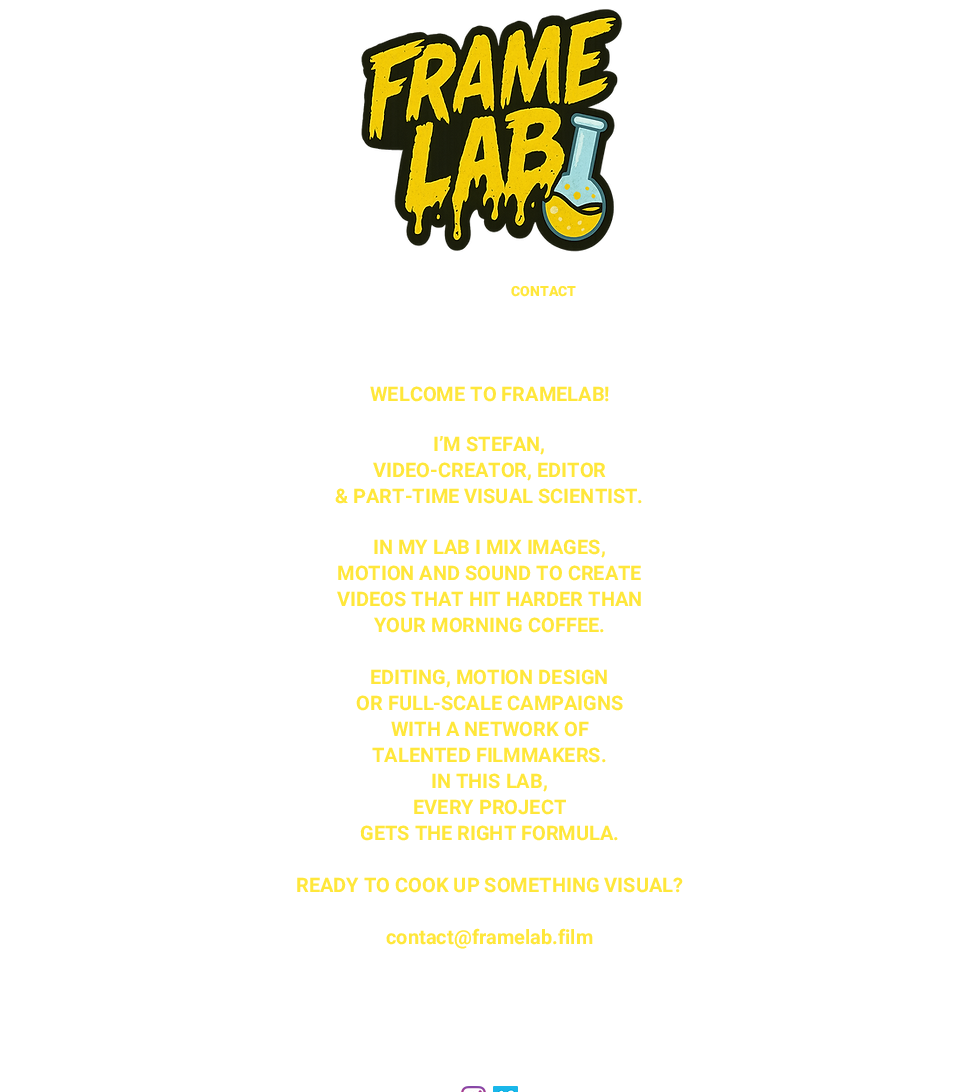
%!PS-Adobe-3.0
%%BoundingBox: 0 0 962 1092
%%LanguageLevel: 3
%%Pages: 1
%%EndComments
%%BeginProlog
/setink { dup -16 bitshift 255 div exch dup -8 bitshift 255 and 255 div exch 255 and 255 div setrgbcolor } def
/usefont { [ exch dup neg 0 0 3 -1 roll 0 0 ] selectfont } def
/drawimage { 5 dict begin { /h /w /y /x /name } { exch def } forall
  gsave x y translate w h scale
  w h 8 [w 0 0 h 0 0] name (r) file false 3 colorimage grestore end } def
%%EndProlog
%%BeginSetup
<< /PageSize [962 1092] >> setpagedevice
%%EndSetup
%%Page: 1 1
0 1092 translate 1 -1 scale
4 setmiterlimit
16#FFFFFF setink
0 0 962 1092 rectfill
(img1.raw) 360 9 263 243 drawimage
/Roboto-Black 14 usefont
16#FFE73B setink
511 296 moveto (CONTACT) show
/Roboto-Bold 20 usefont
[
    [(WELCOME TO FRAMELAB!) 370 401]
    [(I’M STEFAN,) 433 451]
    [(VIDEO-CREATOR, EDITOR) 373 477]
    [(& PART-TIME VISUAL SCIENTIST.) 335 503]
    [(IN MY LAB I MIX IMAGES,) 373 554]
    [(MOTION AND SOUND TO CREATE) 337 580]
    [(VIDEOS THAT HIT HARDER THAN) 337 606]
    [(YOUR MORNING COFFEE.) 374 632]
    [(EDITING, MOTION DESIGN) 370 684]
    [(OR FULL-SCALE CAMPAIGNS) 356 710]
    [(WITH A NETWORK OF) 391 736]
    [(TALENTED FILMMAKERS.) 372 762]
    [(IN THIS LAB,) 431 788]
    [(EVERY PROJECT) 413 814]
    [(GETS THE RIGHT FORMULA.) 360 840]
    [(READY TO COOK UP SOMETHING VISUAL?) 296 892]
    [(contact@framelab.film) 386 944]
] { aload pop moveto show } forall
(img2.raw) 461 1086 25 6 drawimage
(img3.raw) 493 1086 25 6 drawimage
showpage
%%EOF
